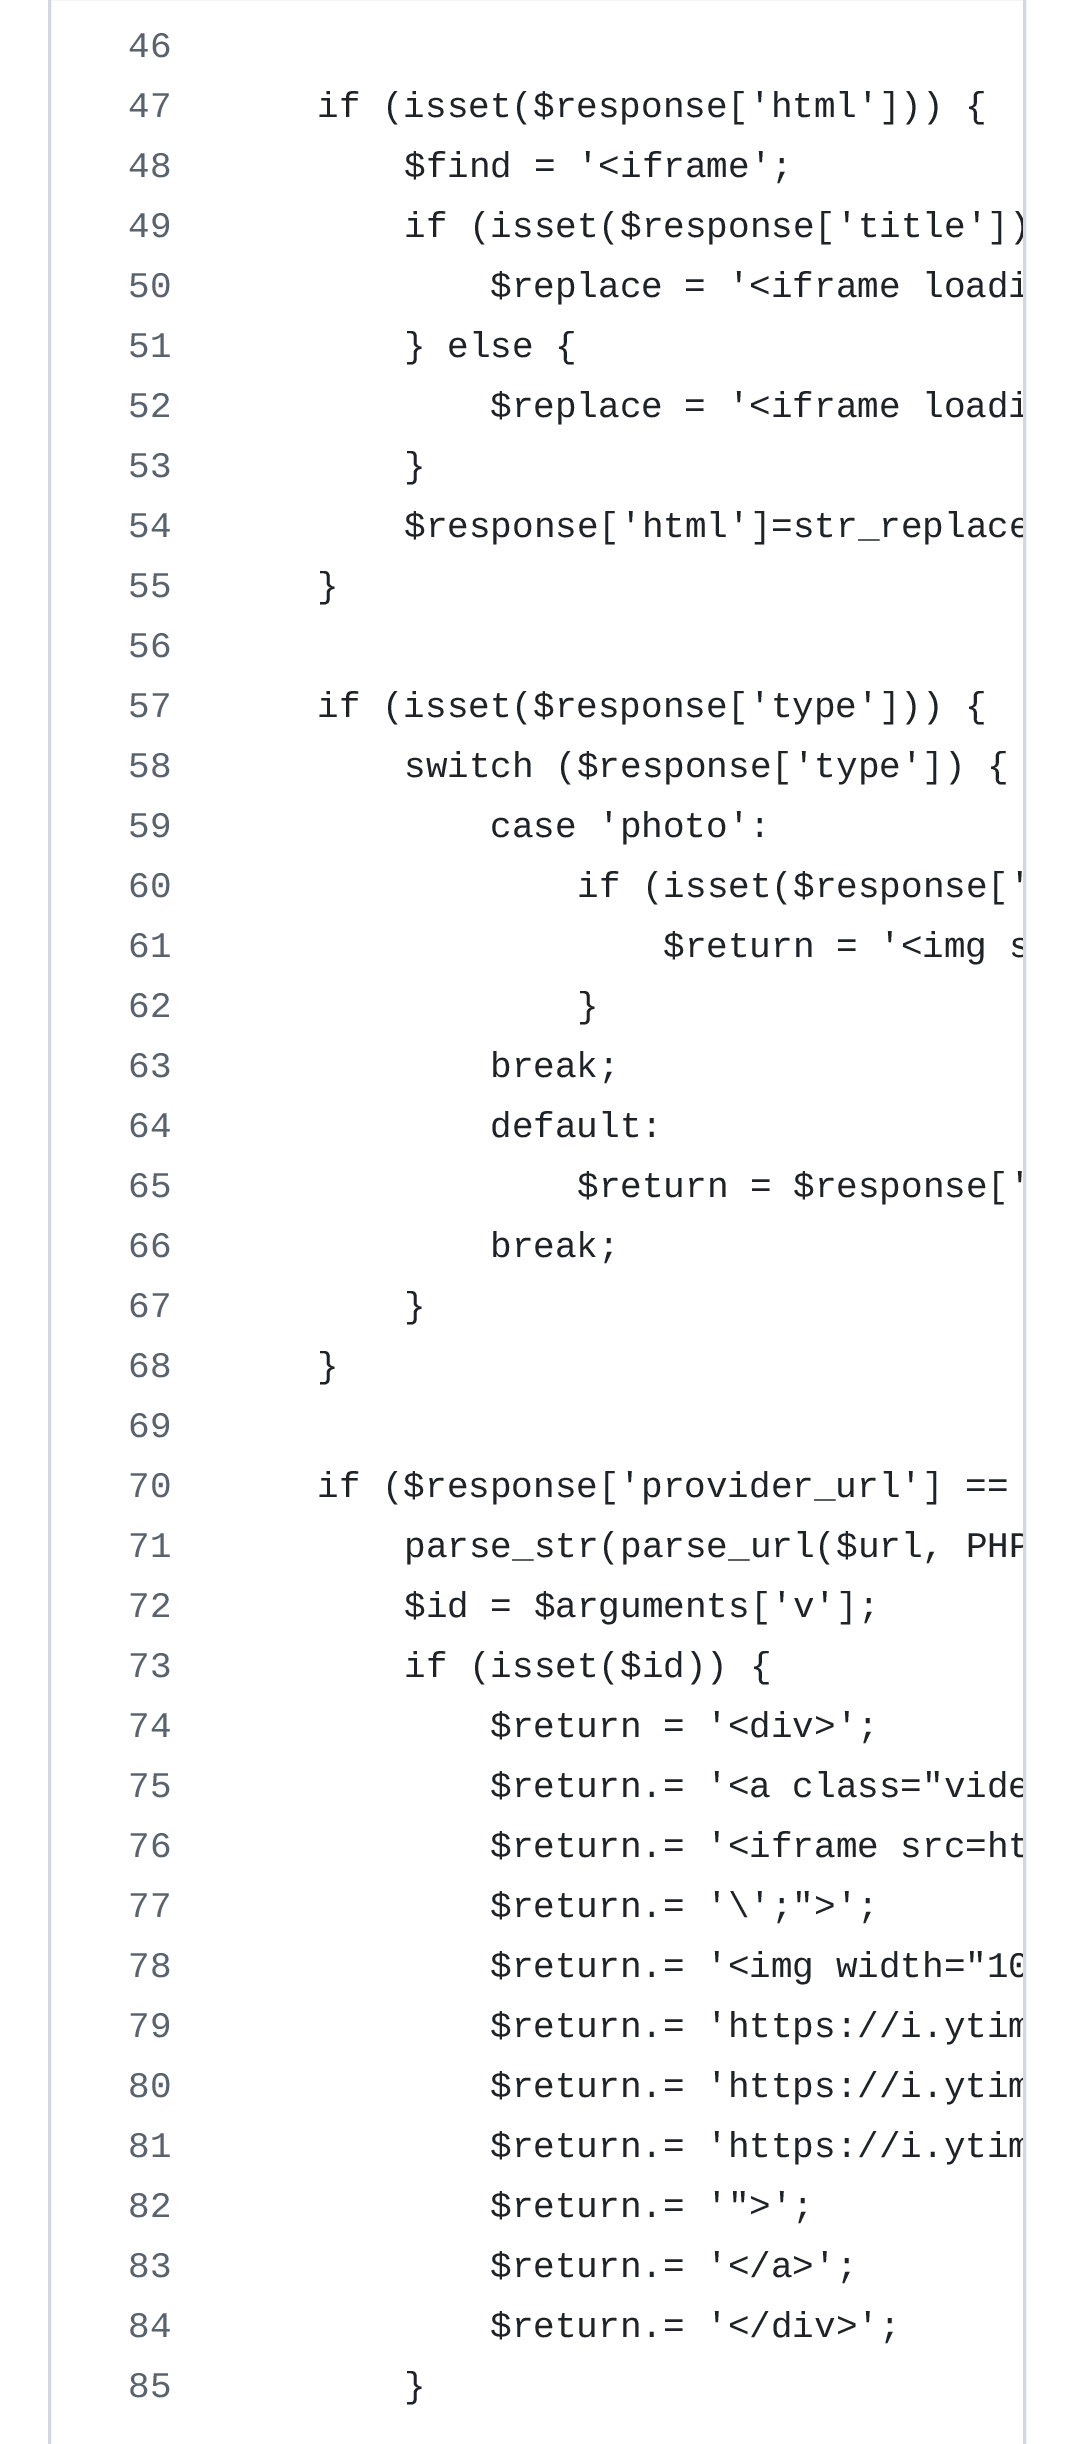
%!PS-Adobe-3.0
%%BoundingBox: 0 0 1072 2444
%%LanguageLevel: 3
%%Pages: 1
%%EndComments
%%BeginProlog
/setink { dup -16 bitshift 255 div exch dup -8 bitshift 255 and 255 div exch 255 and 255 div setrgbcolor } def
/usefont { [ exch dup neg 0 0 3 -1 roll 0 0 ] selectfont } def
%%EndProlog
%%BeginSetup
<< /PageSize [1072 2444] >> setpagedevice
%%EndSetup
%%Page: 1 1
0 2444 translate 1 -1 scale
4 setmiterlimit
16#FFFFFF setink
0 0 1072 2444 rectfill
16#D1D9E0 setink
3 setlinewidth
49.5 -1.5 975 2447 rectstroke
/LiberationMono-Regular 36 usefont
16#59636E setink
128 57 moveto (46) show
128 117 moveto (47) show
16#1F2328 setink
317 117 moveto (if \(isset\($response['html']\)\) {) show
16#59636E setink
128 177 moveto (48) show
16#1F2328 setink
404 177 moveto ($find = '<iframe';) show
16#59636E setink
128 237 moveto (49) show
gsave
51 -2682 moveto 1023 -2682 lineto 1023 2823 lineto 1023 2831.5 1015 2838 1005 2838 curveto 69 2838 lineto 59 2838 51 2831.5 51 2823 curveto closepath clip newpath
16#1F2328 setink
404 237 moveto (if \(isset\($response['title']\)) show
grestore
128 297 moveto (50) show
gsave
51 -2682 moveto 1023 -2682 lineto 1023 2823 lineto 1023 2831.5 1015 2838 1005 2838 curveto 69 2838 lineto 59 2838 51 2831.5 51 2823 curveto closepath clip newpath
16#1F2328 setink
490 297 moveto ($replace = '<iframe loadi) show
grestore
128 357 moveto (51) show
16#1F2328 setink
404 357 moveto (} else {) show
16#59636E setink
128 417 moveto (52) show
gsave
51 -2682 moveto 1023 -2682 lineto 1023 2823 lineto 1023 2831.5 1015 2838 1005 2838 curveto 69 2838 lineto 59 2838 51 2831.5 51 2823 curveto closepath clip newpath
16#1F2328 setink
490 417 moveto ($replace = '<iframe loadi) show
grestore
128 477 moveto (53) show
16#1F2328 setink
404 477 moveto (}) show
16#59636E setink
128 537 moveto (54) show
gsave
51 -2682 moveto 1023 -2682 lineto 1023 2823 lineto 1023 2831.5 1015 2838 1005 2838 curveto 69 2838 lineto 59 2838 51 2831.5 51 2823 curveto closepath clip newpath
16#1F2328 setink
404 537 moveto ($response['html']=str_replace) show
grestore
128 597 moveto (55) show
16#1F2328 setink
317 597 moveto (}) show
16#59636E setink
128 657 moveto (56) show
128 717 moveto (57) show
16#1F2328 setink
317 717 moveto (if \(isset\($response['type']\)\) {) show
16#59636E setink
128 777 moveto (58) show
16#1F2328 setink
404 777 moveto (switch \($response['type']\) {) show
16#59636E setink
128 837 moveto (59) show
16#1F2328 setink
490 837 moveto (case 'photo':) show
16#59636E setink
128 897 moveto (60) show
16#1F2328 setink
577 897 moveto (if \(isset\($response[') show
16#59636E setink
128 957 moveto (61) show
gsave
51 -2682 moveto 1023 -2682 lineto 1023 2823 lineto 1023 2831.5 1015 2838 1005 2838 curveto 69 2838 lineto 59 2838 51 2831.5 51 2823 curveto closepath clip newpath
16#1F2328 setink
663 957 moveto ($return = '<img s) show
grestore
128 1017 moveto (62) show
16#1F2328 setink
577 1017 moveto (}) show
16#59636E setink
128 1077 moveto (63) show
16#1F2328 setink
490 1077 moveto (break;) show
16#59636E setink
128 1137 moveto (64) show
16#1F2328 setink
490 1137 moveto (default:) show
16#59636E setink
128 1197 moveto (65) show
16#1F2328 setink
577 1197 moveto ($return = $response[') show
16#59636E setink
128 1257 moveto (66) show
16#1F2328 setink
490 1257 moveto (break;) show
16#59636E setink
128 1317 moveto (67) show
16#1F2328 setink
404 1317 moveto (}) show
16#59636E setink
128 1377 moveto (68) show
16#1F2328 setink
317 1377 moveto (}) show
16#59636E setink
128 1437 moveto (69) show
128 1497 moveto (70) show
16#1F2328 setink
317 1497 moveto (if \($response['provider_url'] ==) show
16#59636E setink
128 1557 moveto (71) show
gsave
51 -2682 moveto 1023 -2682 lineto 1023 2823 lineto 1023 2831.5 1015 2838 1005 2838 curveto 69 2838 lineto 59 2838 51 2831.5 51 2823 curveto closepath clip newpath
16#1F2328 setink
404 1557 moveto (parse_str\(parse_url\($url, PHP) show
grestore
128 1617 moveto (72) show
16#1F2328 setink
404 1617 moveto ($id = $arguments['v'];) show
16#59636E setink
128 1677 moveto (73) show
16#1F2328 setink
404 1677 moveto (if \(isset\($id\)\) {) show
16#59636E setink
128 1737 moveto (74) show
16#1F2328 setink
490 1737 moveto ($return = '<div>';) show
16#59636E setink
128 1797 moveto (75) show
gsave
51 -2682 moveto 1023 -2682 lineto 1023 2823 lineto 1023 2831.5 1015 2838 1005 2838 curveto 69 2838 lineto 59 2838 51 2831.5 51 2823 curveto closepath clip newpath
16#1F2328 setink
490 1797 moveto ($return.= '<a class="vide) show
grestore
128 1857 moveto (76) show
gsave
51 -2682 moveto 1023 -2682 lineto 1023 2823 lineto 1023 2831.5 1015 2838 1005 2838 curveto 69 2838 lineto 59 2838 51 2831.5 51 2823 curveto closepath clip newpath
16#1F2328 setink
490 1857 moveto ($return.= '<iframe src=ht) show
grestore
128 1917 moveto (77) show
16#1F2328 setink
490 1917 moveto ($return.= '\\';">';) show
16#59636E setink
128 1977 moveto (78) show
gsave
51 -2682 moveto 1023 -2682 lineto 1023 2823 lineto 1023 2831.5 1015 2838 1005 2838 curveto 69 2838 lineto 59 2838 51 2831.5 51 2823 curveto closepath clip newpath
16#1F2328 setink
490 1977 moveto ($return.= '<img width="10) show
grestore
128 2037 moveto (79) show
gsave
51 -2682 moveto 1023 -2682 lineto 1023 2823 lineto 1023 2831.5 1015 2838 1005 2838 curveto 69 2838 lineto 59 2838 51 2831.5 51 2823 curveto closepath clip newpath
16#1F2328 setink
490 2037 moveto ($return.= 'https://i.ytim) show
grestore
128 2097 moveto (80) show
gsave
51 -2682 moveto 1023 -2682 lineto 1023 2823 lineto 1023 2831.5 1015 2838 1005 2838 curveto 69 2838 lineto 59 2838 51 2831.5 51 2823 curveto closepath clip newpath
16#1F2328 setink
490 2097 moveto ($return.= 'https://i.ytim) show
grestore
128 2157 moveto (81) show
gsave
51 -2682 moveto 1023 -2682 lineto 1023 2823 lineto 1023 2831.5 1015 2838 1005 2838 curveto 69 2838 lineto 59 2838 51 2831.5 51 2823 curveto closepath clip newpath
16#1F2328 setink
490 2157 moveto ($return.= 'https://i.ytim) show
grestore
128 2217 moveto (82) show
16#1F2328 setink
490 2217 moveto ($return.= '">';) show
16#59636E setink
128 2277 moveto (83) show
16#1F2328 setink
490 2277 moveto ($return.= '</a>';) show
16#59636E setink
128 2337 moveto (84) show
16#1F2328 setink
490 2337 moveto ($return.= '</div>';) show
16#59636E setink
128 2397 moveto (85) show
16#1F2328 setink
404 2397 moveto (}) show
showpage
%%EOF
